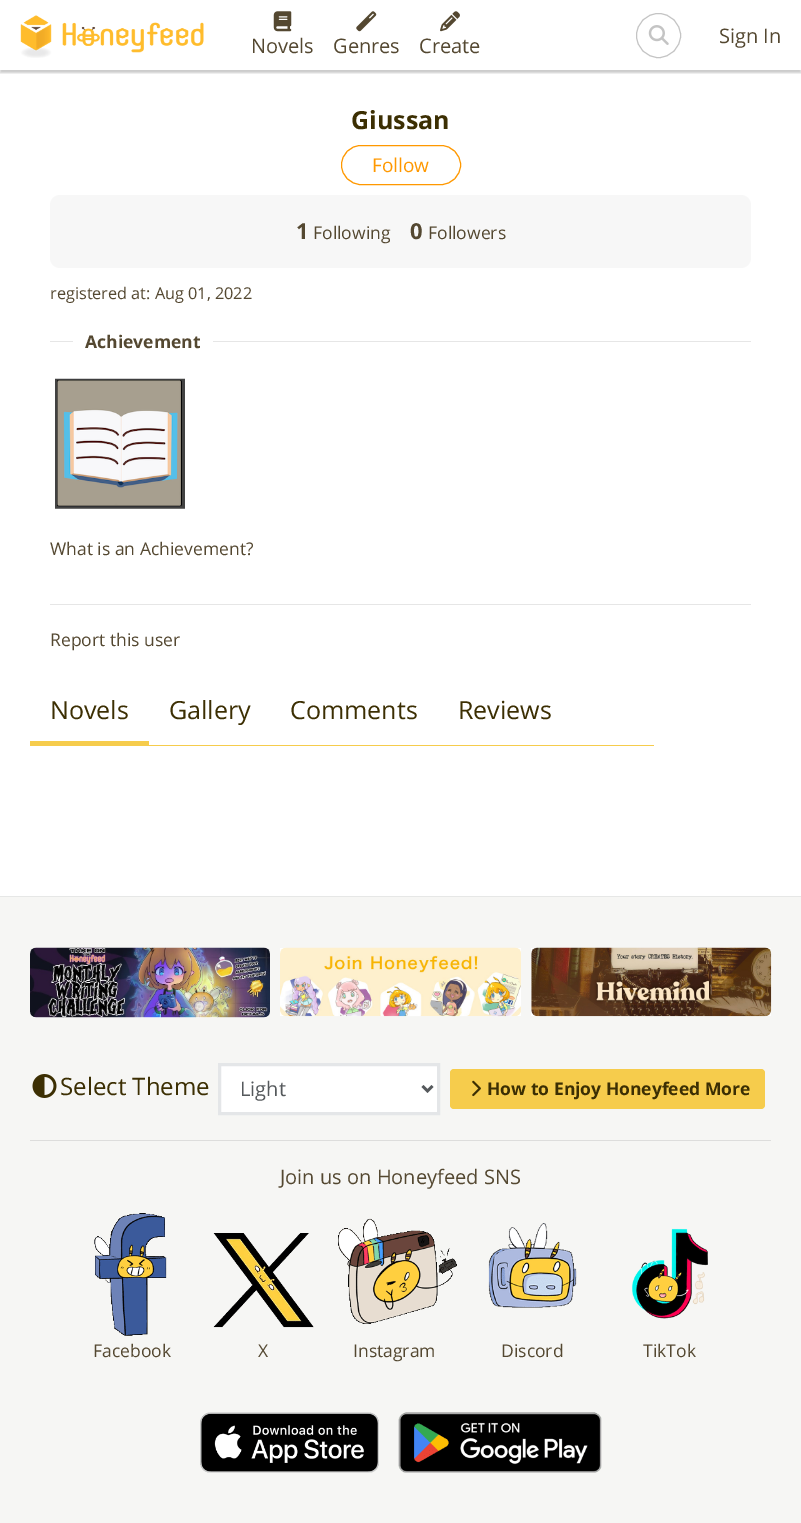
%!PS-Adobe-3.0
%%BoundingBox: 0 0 801 1523
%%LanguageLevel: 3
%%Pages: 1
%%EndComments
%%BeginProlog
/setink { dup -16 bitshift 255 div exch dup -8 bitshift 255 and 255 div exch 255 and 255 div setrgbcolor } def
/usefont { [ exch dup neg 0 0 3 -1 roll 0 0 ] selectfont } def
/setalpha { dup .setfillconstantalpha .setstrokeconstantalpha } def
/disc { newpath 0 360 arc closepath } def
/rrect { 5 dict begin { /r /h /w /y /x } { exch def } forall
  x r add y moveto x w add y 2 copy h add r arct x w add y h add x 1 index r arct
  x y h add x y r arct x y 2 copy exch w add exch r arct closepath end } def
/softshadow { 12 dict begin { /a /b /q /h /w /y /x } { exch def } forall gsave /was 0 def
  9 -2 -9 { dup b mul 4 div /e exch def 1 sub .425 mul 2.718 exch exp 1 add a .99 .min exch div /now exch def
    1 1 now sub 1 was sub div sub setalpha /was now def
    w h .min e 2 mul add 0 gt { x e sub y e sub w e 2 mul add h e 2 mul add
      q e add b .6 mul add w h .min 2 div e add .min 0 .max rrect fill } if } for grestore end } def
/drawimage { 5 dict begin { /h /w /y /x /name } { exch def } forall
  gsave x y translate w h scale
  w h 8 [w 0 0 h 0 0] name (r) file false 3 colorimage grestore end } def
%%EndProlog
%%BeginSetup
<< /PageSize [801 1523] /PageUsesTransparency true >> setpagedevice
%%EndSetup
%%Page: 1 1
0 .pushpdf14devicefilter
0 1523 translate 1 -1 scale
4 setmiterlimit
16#FFFFFF setink
0 0 801 1523 rectfill
gsave
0 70 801 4 rectclip
16#000000 setink
0 3 801 70 0 1 0.2 softshadow
grestore
(img1.raw) 20 15 32 43 drawimage
(img2.raw) 62 22 142 31 drawimage
(img3.raw) 273 11 19 21 drawimage
/OpenSans-Regular 20 usefont
16#544831 setink
251 53 moveto (Novels) show
(img4.raw) 356 11 21 21 drawimage
333 53 moveto (Genres) show
(img5.raw) 440 11 20 21 drawimage
419 53 moveto (Create) show
16#C4C4C4 setink
658.5 35.5 22 disc stroke
(img6.raw) 648 25 21 20 drawimage
16#544831 setink
719 43 moveto (Sign In) show
/OpenSans-Bold 25 usefont
16#3C2F03 setink
351 129 moveto (Giussan) show
16#FF9800 setink
341.5 145.5 119 39 19.5 rrect stroke
/OpenSans-Regular 19 usefont
372 172 moveto (Follow) show
16#F7F7F7 setink
50 195 701 73 10 rrect fill
/OpenSans-Bold 22 usefont
16#544831 setink
296 239 moveto (1) show
/OpenSans-Regular 17.5 usefont
313 239 moveto (Following) show
/OpenSans-Bold 22 usefont
410 239 moveto (0) show
/OpenSans-Regular 17.5 usefont
428 239 moveto (Followers) show
/OpenSans-Regular 16.25 usefont
50 299 moveto (registered at: Aug 01, 2022) show
16#E6E6E6 setink
50 341 701 1 rectfill
16#FFFFFF setink
73 341 140 1 rectfill
/OpenSans-Bold 17.5 usefont
16#544831 setink
85 348 moveto (Achievement) show
(img7.raw) 55 378 130 131 drawimage
/OpenSans-Regular 17.5 usefont
50 555 moveto (What is an Achievement?) show
16#E6E6E6 setink
50 604 701 1 rectfill
16#544831 setink
50 646 moveto (Report this user) show
16#F6CC4C setink
30 745 624 1 rectfill
/OpenSans-Regular 25 usefont
16#3C2F03 setink
50 719 moveto (Novels) show
16#F6CC4C setink
30 741 119 4 rectfill
16#3C2F03 setink
[
    [(Gallery) 169 719]
    [(Comments) 290 719]
    [(Reviews) 458 719]
] { aload pop moveto show } forall
16#F6F6F4 setink
0 897 801 626 rectfill
16#E6E7E6 setink
0 896 801 1 rectfill
16#FFFFFF setink
30 948 240 70 6 rrect fill
(img8.raw) 30 947 240 71 drawimage
280 948 241 68 rectfill
(img9.raw) 280 947 241 70 drawimage
531 948 240 68 rectfill
(img10.raw) 531 947 241 70 drawimage
(img11.raw) 32 1074 25 24 drawimage
/OpenSans-Regular 24 usefont
16#3C2F03 setink
60 1095 moveto (Select Theme) show
16#FFFFFF setink
219.5 1064.5 moveto 438.5 1064.5 lineto 438.5 1113.5 lineto 219.5 1113.5 lineto closepath gsave fill grestore
16#E4E6E8 setink
3 setlinewidth
stroke
16#55595C setink
2.5 setlinewidth
422.5 1086 moveto 427.5 1091 lineto 432.5 1086 lineto stroke
/OpenSans-Regular 20 usefont
240 1096 moveto (Light) show
16#F6CC4C setink
450 1069 315 40 4 rrect fill
(img12.raw) 472 1080 9 17 drawimage
/OpenSans-Bold 17.5 usefont
16#3C2F03 setink
487 1095 moveto (How to Enjoy Honeyfeed More) show
16#DDDDDC setink
30 1140 741 1 rectfill
/OpenSans-Regular 20 usefont
16#544831 setink
280 1184 moveto (Join us on Honeyfeed SNS) show
(img13.raw) 94 1213 73 123 drawimage
/OpenSans-Regular 17.5 usefont
93 1357 moveto (Facebook) show
(img14.raw) 213 1233 101 95 drawimage
258 1357 moveto (X) show
(img15.raw) 338 1218 119 106 drawimage
353 1357 moveto (Instagram) show
(img16.raw) 488 1223 89 85 drawimage
501 1357 moveto (Discord) show
(img17.raw) 632 1228 76 91 drawimage
643 1357 moveto (TikTok) show
(img18.raw) 200 1412 179 61 drawimage
(img19.raw) 398 1412 204 61 drawimage
.poppdf14devicefilter showpage
%%EOF
